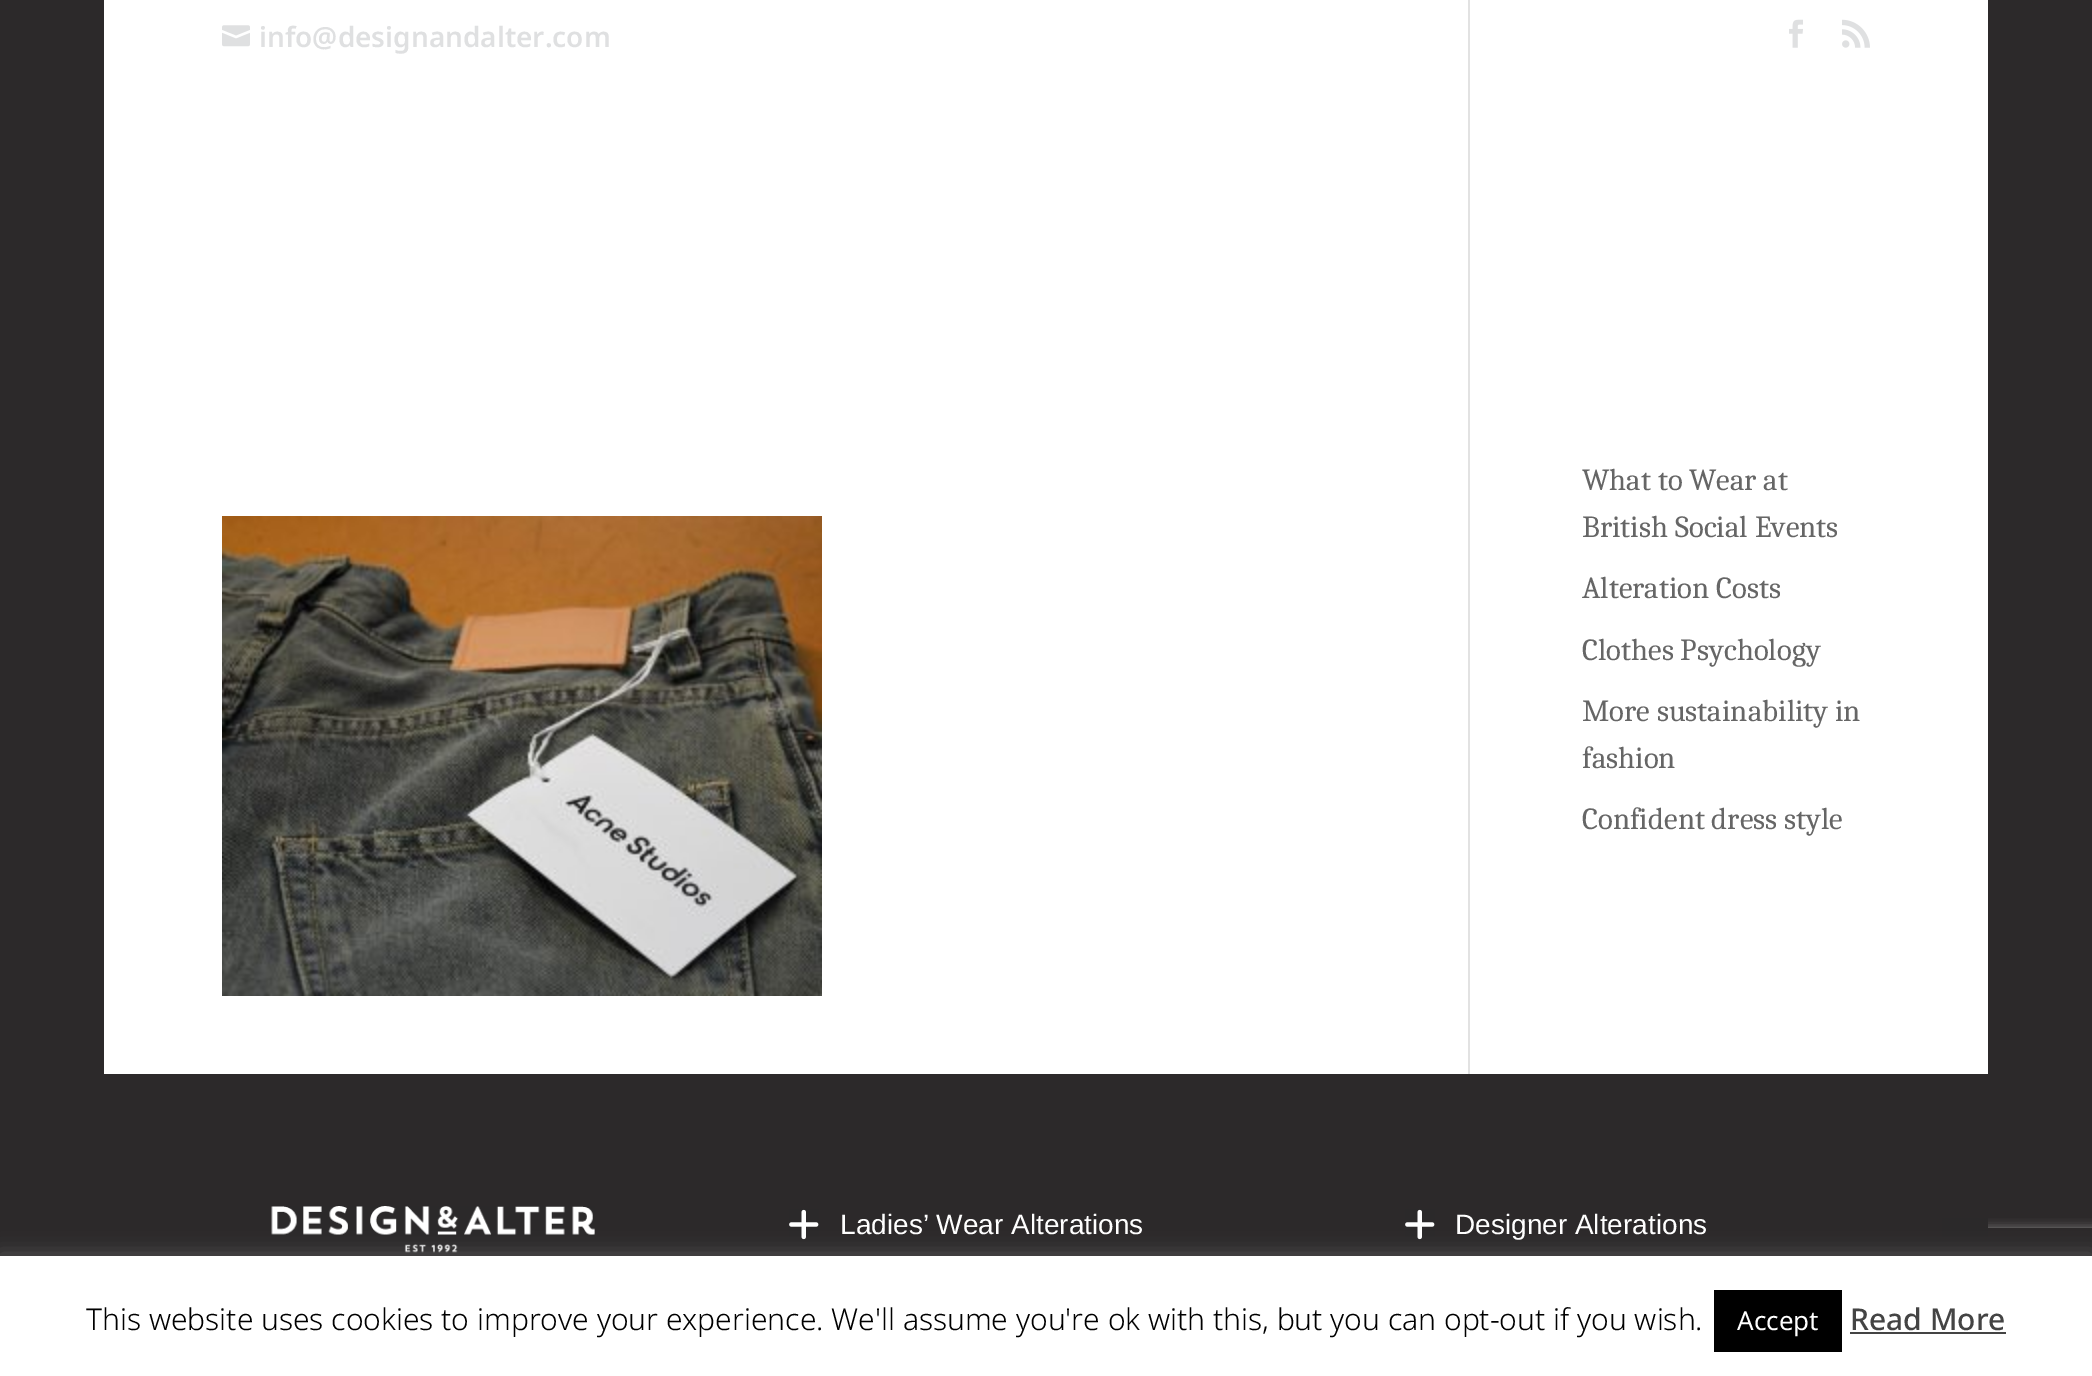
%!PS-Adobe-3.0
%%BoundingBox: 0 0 2092 1376
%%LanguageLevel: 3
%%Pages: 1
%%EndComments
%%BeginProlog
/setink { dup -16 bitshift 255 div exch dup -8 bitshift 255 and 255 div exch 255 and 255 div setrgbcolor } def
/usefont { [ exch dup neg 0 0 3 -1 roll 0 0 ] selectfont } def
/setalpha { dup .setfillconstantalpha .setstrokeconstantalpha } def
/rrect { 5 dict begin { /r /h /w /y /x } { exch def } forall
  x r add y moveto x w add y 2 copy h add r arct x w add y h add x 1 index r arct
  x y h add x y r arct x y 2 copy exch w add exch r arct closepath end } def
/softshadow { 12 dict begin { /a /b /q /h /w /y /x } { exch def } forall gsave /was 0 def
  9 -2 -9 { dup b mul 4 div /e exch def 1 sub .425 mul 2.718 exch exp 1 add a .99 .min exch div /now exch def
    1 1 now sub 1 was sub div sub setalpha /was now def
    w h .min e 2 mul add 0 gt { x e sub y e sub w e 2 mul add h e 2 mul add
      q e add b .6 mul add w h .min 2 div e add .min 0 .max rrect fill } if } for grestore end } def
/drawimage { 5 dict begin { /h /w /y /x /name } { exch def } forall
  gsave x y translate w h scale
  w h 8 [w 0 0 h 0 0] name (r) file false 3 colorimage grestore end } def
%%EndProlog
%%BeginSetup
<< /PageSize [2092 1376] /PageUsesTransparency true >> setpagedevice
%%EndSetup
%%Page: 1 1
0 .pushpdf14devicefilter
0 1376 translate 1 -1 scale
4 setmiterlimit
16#2C292A setink
0 0 2092 1376 rectfill
16#FFFFFF setink
104 0 1884 1074 rectfill
(img1.raw) 222 25 28 22 drawimage
/NotoSans-SemiBold 28 usefont
16#DFE0E1 setink
259 47 moveto (info@designandalter.com) show
(img2.raw) 1789 19 14 29 drawimage
(img3.raw) 1842 19 28 29 drawimage
16#E2E2E2 setink
1468 0 2 1074 rectfill
(img4.raw) 222 516 600 480 drawimage
/Caladea-Regular 30.75 usefont
16#666666 setink
[
    [(What to Wear at) 1582 490]
    [(British Social Events) 1582 537]
    [(Alteration Costs) 1582 598]
    [(Clothes Psychology) 1582 660]
    [(More sustainability in) 1582 721]
    [(fashion) 1582 768]
    [(Confident dress style) 1582 829]
] { aload pop moveto show } forall
gsave
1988 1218 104 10 rectclip
16#808080 setink
1952 1228 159 120 4 5 1 softshadow
grestore
16#2B292A setink
1942 1218 46 38 rectfill
(img5.raw) 271 1206 324 47 drawimage
(img6.raw) 789 1209 30 31 drawimage
/LiberationSans-Regular 28 usefont
16#FFFFFF setink
840 1234 moveto (Ladies’ Wear Alterations) show
(img6.raw) 1405 1209 30 31 drawimage
1455 1234 moveto (Designer Alterations) show
16#ACABAB setink
0 1254 2092 120 0 10 0.3 softshadow
16#FFFFFF setink
0 1256 2092 120 rectfill
/NotoSans-Light 30 usefont
16#000000 setink
86 1330 moveto (This website uses cookies to improve your experience. We'll assume you're ok with this, but you can opt-out if you wish.) show
1714 1290 128 62 rectfill
/NotoSans-Regular 26 usefont
16#FFFFFF setink
1737 1330 moveto (Accept) show
/NotoSans-Medium 30 usefont
16#444444 setink
1850 1330 moveto (Read More) show
1850 1332 156 2 rectfill
.poppdf14devicefilter showpage
%%EOF
